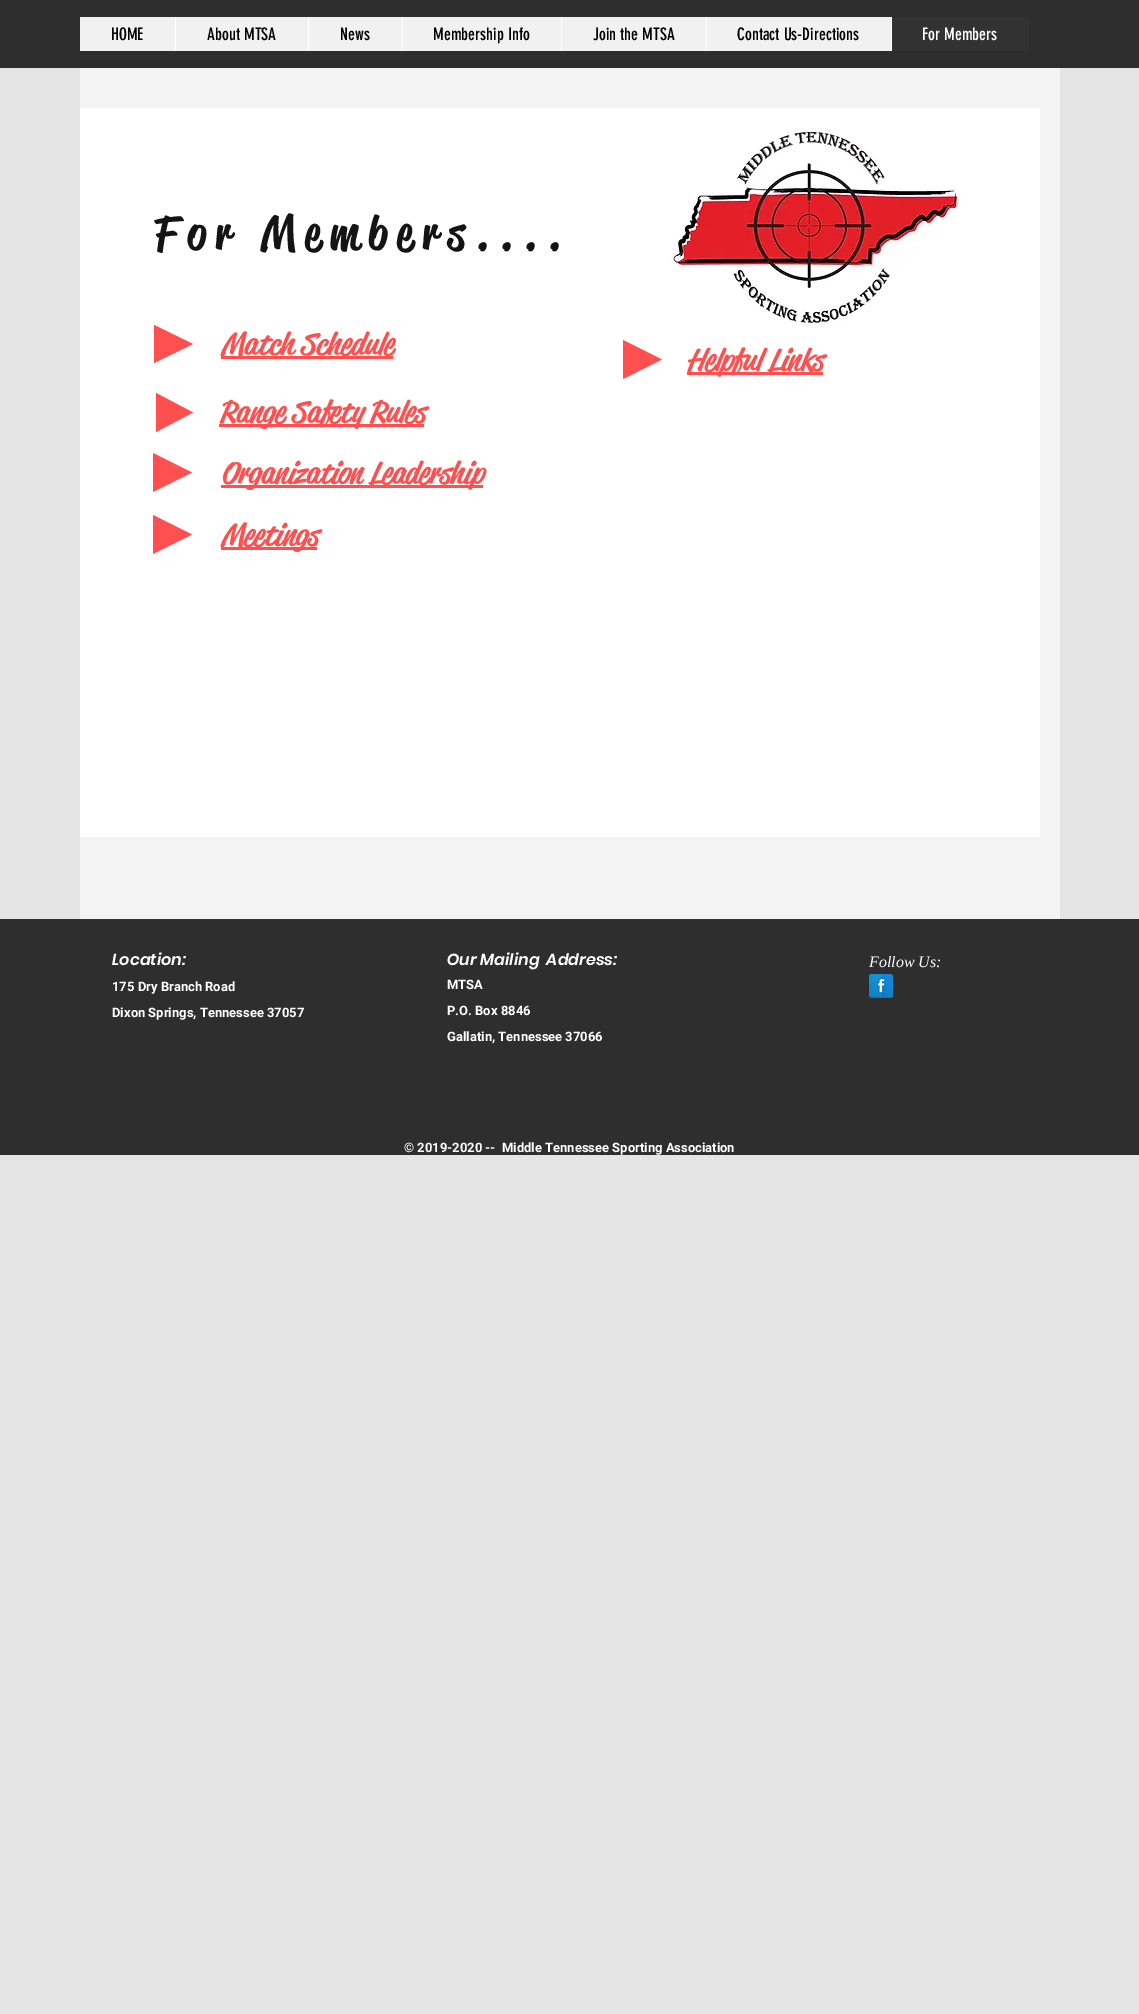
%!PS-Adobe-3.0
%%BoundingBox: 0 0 1139 2014
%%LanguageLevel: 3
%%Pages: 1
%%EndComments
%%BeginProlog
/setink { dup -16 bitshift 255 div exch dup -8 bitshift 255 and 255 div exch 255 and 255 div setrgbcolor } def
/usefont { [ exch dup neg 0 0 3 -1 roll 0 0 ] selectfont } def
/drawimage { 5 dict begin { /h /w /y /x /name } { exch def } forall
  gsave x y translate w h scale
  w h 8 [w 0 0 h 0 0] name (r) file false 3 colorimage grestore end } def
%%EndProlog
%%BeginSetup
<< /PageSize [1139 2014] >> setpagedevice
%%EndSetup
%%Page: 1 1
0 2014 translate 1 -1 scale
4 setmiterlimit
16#E4E4E4 setink
0 0 1139 2014 rectfill
16#2F2E2E setink
0 0 1139 68 rectfill
16#F1F1F1 setink
80 17 811 34 rectfill
/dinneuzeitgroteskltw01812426-Regular 17 usefont
16#000000 setink
111 40 moveto (HOME) show
16#FFFFFF setink
175 17 1 34 rectfill
16#000000 setink
207 40 moveto (About MTSA) show
16#FFFFFF setink
308 17 1 34 rectfill
16#000000 setink
340 40 moveto (News) show
16#FFFFFF setink
402 17 1 34 rectfill
16#000000 setink
433 40 moveto (Membership Info) show
16#FFFFFF setink
561 17 1 34 rectfill
16#000000 setink
593 40 moveto (Join the MTSA) show
16#FFFFFF setink
706 17 1 34 rectfill
16#000000 setink
737 40 moveto (Contact Us-Directions) show
16#323232 setink
892 17 137 34 rectfill
16#FFFFFF setink
891 17 1 34 rectfill
922 40 moveto (For Members) show
16#F3F3F3 setink
80 68 980 851 rectfill
16#FFFFFF setink
80 108 960 729 rectfill
/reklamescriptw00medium-Medium 47 usefont
16#141414 setink
154 249 moveto 9.4 0 (For Members....) ashow
(img1.raw) 671 132 288 192 drawimage
16#FF4F4F setink
154 325 moveto 193 344 lineto 154 363 lineto closepath fill
221 356 172 3 rectfill
/reklamescriptw00medium-MediumItalic 30 usefont
221 354 moveto (Match Schedule) show
623 340 moveto 662 359.5 lineto 623 379 lineto closepath fill
687 372 136 3 rectfill
687 370 moveto (Helpful Links) show
156 393 moveto 193 412.5 lineto 156 432 lineto closepath fill
219 424 205 3 rectfill
219 422 moveto (Range Safety Rules) show
153 453 moveto 192 472.5 lineto 153 492 lineto closepath fill
221 485 262 3 rectfill
221 483 moveto (Organization Leadership) show
153 515 moveto 192 534.5 lineto 153 554 lineto closepath fill
221 547 96 3 rectfill
221 545 moveto (Meetings) show
16#2F2E2E setink
0 919 1139 236 rectfill
/Poppins-SemiBoldItalic 16 usefont
16#FFFFFF setink
112 965 moveto (Location:) show
447 965 moveto (Our Mailing  Address:) show
/LiberationSerif-Italic 16 usefont
869 967 moveto (Follow Us:) show
/Roboto-Bold 13 usefont
[
    [(175 Dry Branch Road) 112 991]
    [(Dixon Springs, Tennessee 37057) 112 1017]
    [(MTSA) 447 989]
    [(P.O. Box 8846) 447 1015]
    [(Gallatin, Tennessee 37066) 447 1041]
] { aload pop moveto show } forall
(img2.raw) 869 974 24 24 drawimage
404 1152 moveto (© 2019-2020 --  Middle Tennessee Sporting Association) show
showpage
%%EOF
